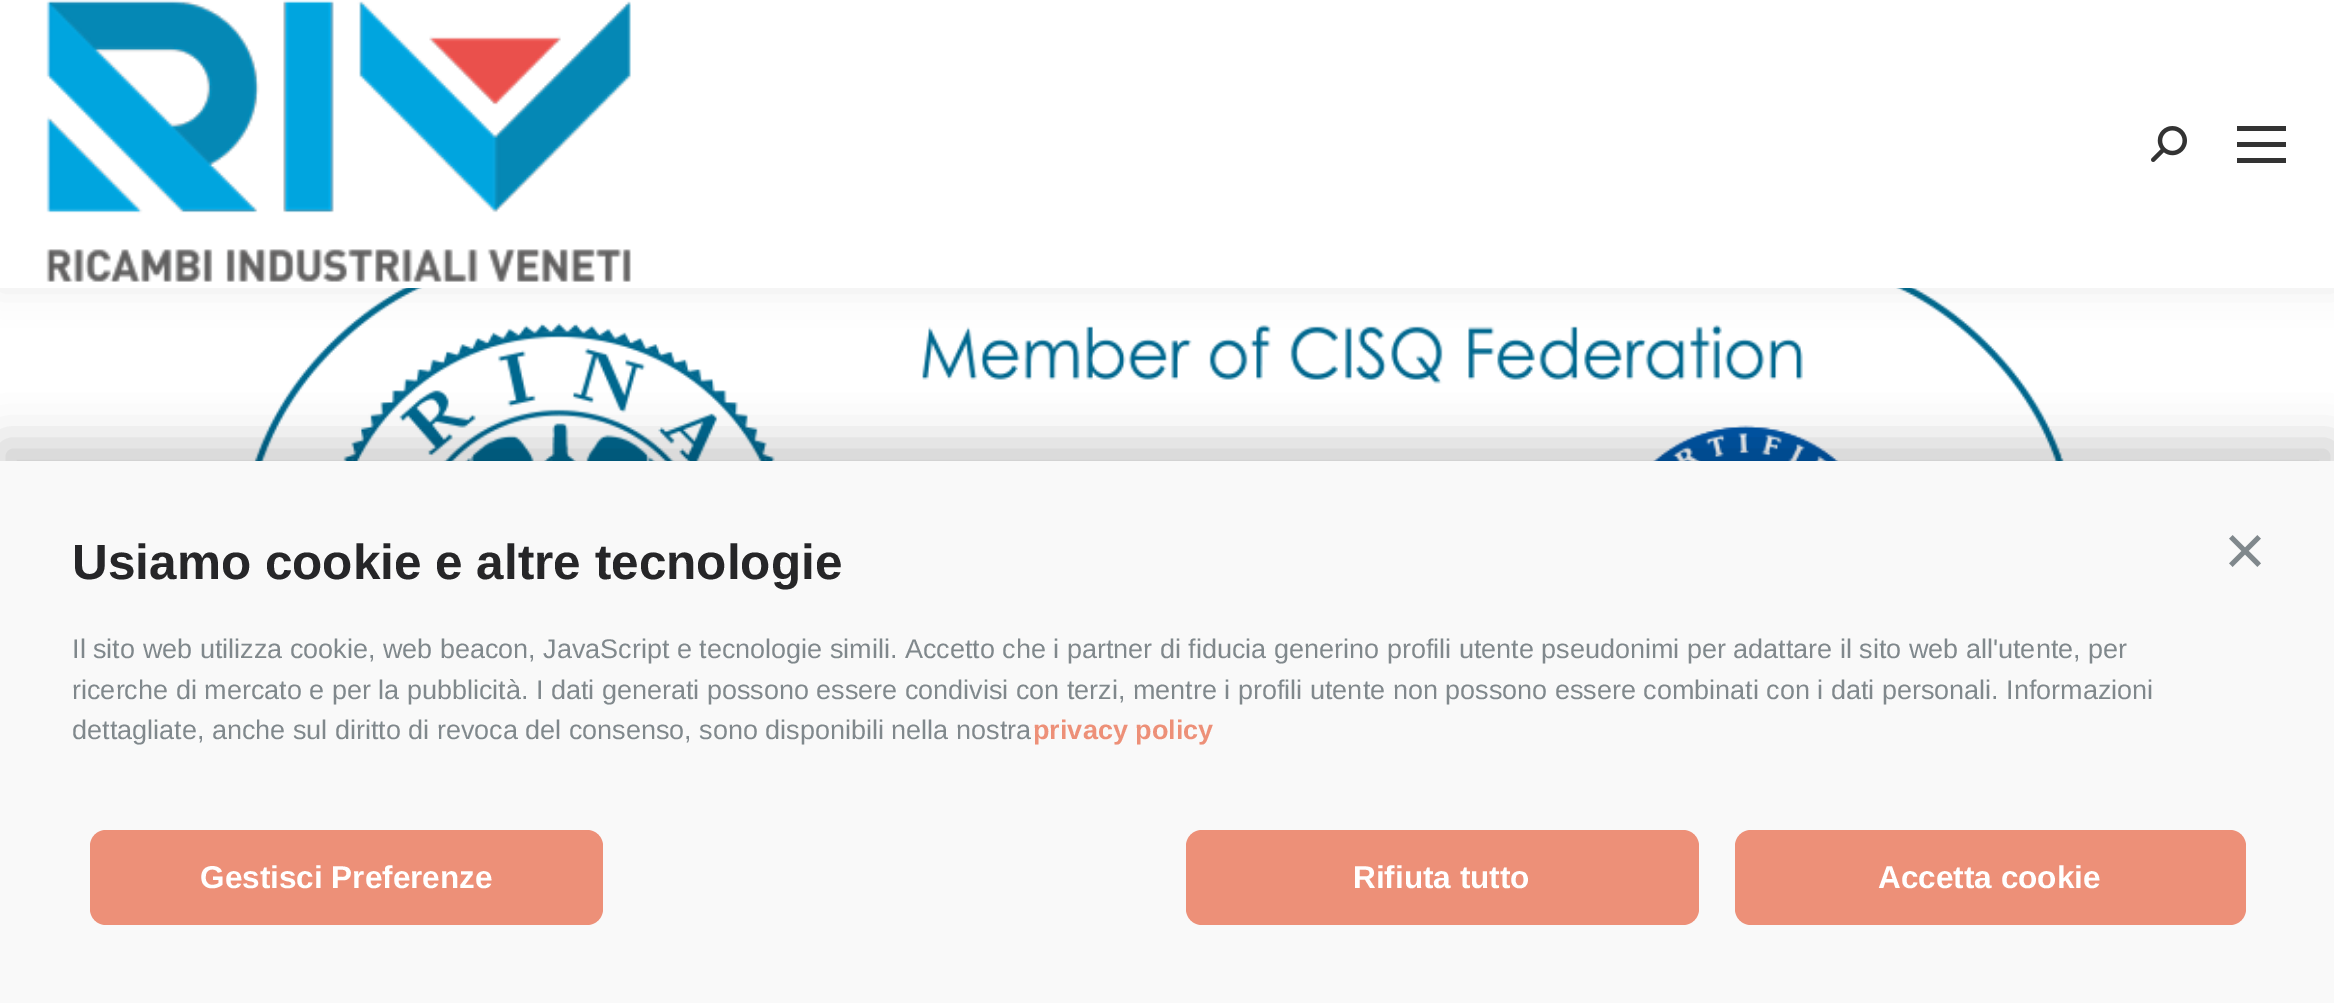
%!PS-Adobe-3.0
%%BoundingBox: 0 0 2334 1003
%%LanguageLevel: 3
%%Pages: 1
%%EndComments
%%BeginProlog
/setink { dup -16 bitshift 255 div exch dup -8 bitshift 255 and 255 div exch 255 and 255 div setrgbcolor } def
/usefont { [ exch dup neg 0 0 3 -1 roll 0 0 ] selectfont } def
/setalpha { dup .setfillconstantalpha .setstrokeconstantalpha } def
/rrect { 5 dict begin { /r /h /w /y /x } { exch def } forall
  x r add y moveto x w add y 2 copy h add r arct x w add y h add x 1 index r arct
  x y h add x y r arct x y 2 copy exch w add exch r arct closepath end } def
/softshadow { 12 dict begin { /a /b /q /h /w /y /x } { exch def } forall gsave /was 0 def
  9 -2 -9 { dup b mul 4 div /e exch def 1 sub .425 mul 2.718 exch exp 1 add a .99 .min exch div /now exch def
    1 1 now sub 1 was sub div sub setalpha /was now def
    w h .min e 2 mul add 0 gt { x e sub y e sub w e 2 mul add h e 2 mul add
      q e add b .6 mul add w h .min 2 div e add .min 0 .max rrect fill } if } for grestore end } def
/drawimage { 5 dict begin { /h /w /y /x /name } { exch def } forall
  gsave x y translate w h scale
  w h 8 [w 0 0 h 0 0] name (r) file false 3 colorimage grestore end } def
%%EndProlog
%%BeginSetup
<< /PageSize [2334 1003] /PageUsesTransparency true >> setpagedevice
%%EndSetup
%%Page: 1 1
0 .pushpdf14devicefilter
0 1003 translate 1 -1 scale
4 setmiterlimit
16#FFFFFF setink
0 0 2334 1003 rectfill
(img3.raw) 249 288 1816 173 drawimage
16#000000 setink
-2 -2 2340 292 0 17 0.07 softshadow
16#FFFFFF setink
0 0 2334 288 rectfill
(img1.raw) 46 0 585 282 drawimage
(img2.raw) 2151 126 36 36 drawimage
[
    [2237 126 49 5 16#333333]
    [2237 142 49 5 16#333333]
    [2237 158 49 5 16#333333]
] { aload pop setink rectfill } forall
16#000000 setink
0 443 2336 543 0 22.5 0.2 softshadow
16#F9F9F9 setink
0 461 2334 542 rectfill
/LiberationSans-Bold 49.5 usefont
16#262628 setink
72 579 moveto (Usiamo cookie e altre tecnologie) show
/LiberationSans-Regular 72 usefont
16#80888C setink
2224 575 moveto (×) show
/LiberationSans-Regular 27 usefont
[
    [(Il sito web utilizza cookie, web beacon, JavaScript e tecnologie simili. Accetto che i partner di fiducia generino profili utente pseudonimi per adattare il sito web all'utente, per) 72 658]
    [(ricerche di mercato e per la pubblicità. I dati generati possono essere condivisi con terzi, mentre i profili utente non possono essere combinati con i dati personali. Informazioni) 72 699]
    [(dettagliate, anche sul diritto di revoca del consenso, sono disponibili nella nostra) 72 739]
] { aload pop moveto show } forall
/LiberationSans-Bold 27 usefont
16#ED9078 setink
1033 739 moveto (privacy policy) show
90 830 513 95 16 rrect fill
/LiberationSans-Bold 31.5 usefont
16#FFFFFF setink
200 888 moveto (Gestisci Preferenze) show
16#ED9078 setink
1186 830 513 95 16 rrect fill
16#FFFFFF setink
1353 888 moveto (Rifiuta tutto) show
16#ED9078 setink
1735 830 511 95 16 rrect fill
16#FFFFFF setink
1878 888 moveto (Accetta cookie) show
.poppdf14devicefilter showpage
%%EOF
